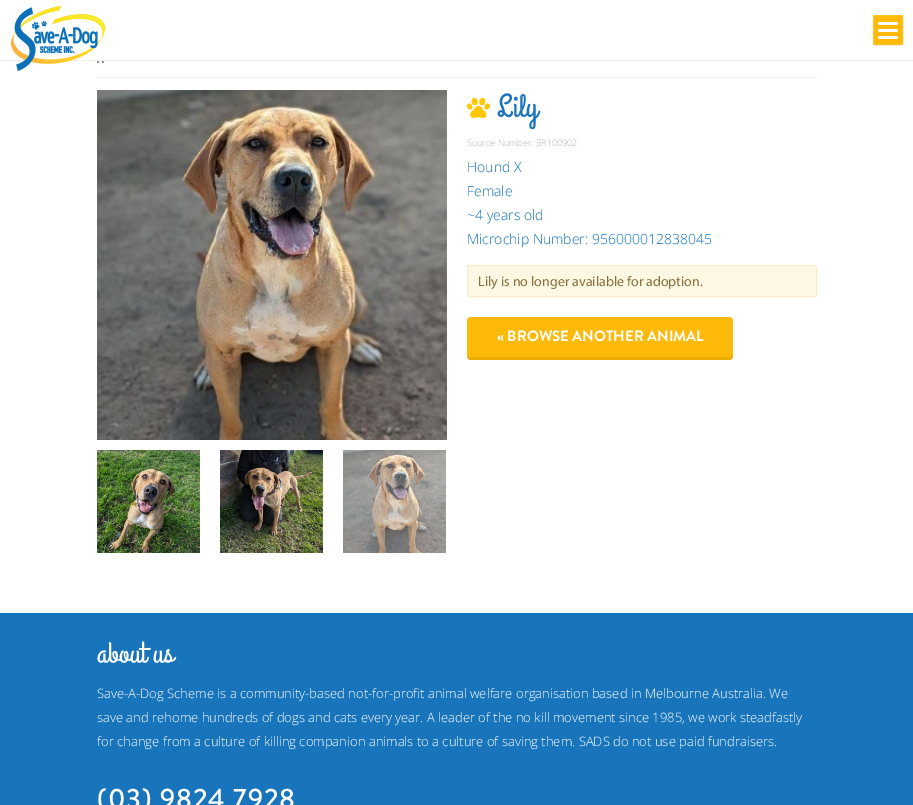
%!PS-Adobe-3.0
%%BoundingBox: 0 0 913 805
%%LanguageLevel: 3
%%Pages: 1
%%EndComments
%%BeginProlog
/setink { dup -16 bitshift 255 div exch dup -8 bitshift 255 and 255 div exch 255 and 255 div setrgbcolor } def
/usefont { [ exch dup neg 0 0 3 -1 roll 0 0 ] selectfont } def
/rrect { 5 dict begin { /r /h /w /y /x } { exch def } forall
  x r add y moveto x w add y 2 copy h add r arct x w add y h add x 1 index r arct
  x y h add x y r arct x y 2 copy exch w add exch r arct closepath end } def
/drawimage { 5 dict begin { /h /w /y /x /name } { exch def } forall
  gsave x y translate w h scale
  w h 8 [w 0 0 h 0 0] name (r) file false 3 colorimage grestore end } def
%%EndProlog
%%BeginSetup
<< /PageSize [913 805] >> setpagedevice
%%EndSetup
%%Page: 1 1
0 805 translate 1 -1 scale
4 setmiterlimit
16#FFFFFF setink
0 0 913 805 rectfill
16#EEEEEE setink
0 60 913 1 rectfill
(img1.raw) 11 6 94 65 drawimage
16#FDBA0B setink
873 15 30 30 2 rrect fill
(img2.raw) 878 22 20 17 drawimage
16#FDC124 setink
873.5 15.5 29 29 1.5 rrect stroke
16#EEEEEE setink
97 77 720 1 rectfill
(img3.raw) 97 90 350 350 drawimage
(img4.raw) 97 450 103 103 drawimage
(img5.raw) 220 450 103 103 drawimage
(img6.raw) 343 450 103 103 drawimage
(img7.raw) 467 98 23 20 drawimage
/GrandHotel-Regular 32 usefont
16#1875BC setink
497 116 moveto (Lily) show
/OpenSans-Light 9 usefont
16#B5B5B5 setink
467 146 moveto (Source Number: BR100902) show
/OpenSans-Light 14 usefont
16#0E70BB setink
[
    [(Hound X) 467 172]
    [(Female) 467 196]
    [(~4 years old) 467 220]
    [(Microchip Number: 956000012838045) 467 244]
] { aload pop moveto show } forall
16#FCF8E3 setink
467.5 265.5 349 31 1.5 rrect gsave fill grestore
16#FAEBCC setink
stroke
/myriad-Regular 14 usefont
16#8A6D3B setink
478 286 moveto (Lily is no longer available for adoption.) show
16#EDAC02 setink
467 353 moveto 467 356 467 360 471 360 curveto 729 360 lineto 733 360 733 356 733 353 curveto 733 355 731 357 729 357 curveto 471 357 lineto 469 357 467 355 467 353 curveto closepath fill
16#FDBA0B setink
467 317 266 40 4 rrect fill
/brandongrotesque-Medium 15 usefont
16#FFFFFF setink
497 341 moveto (« BROWSE ANOTHER ANIMAL) show
16#1875BC setink
0 613 913 192 rectfill
/GrandHotel-Regular 30 usefont
16#FFFFFF setink
97 662 moveto (about us) show
/OpenSans-Light 13 usefont
[
    [(Save-A-Dog Scheme is a community-based not-for-profit animal welfare organisation based in Melbourne Australia. We) 97 698]
    [(save and rehome hundreds of dogs and cats every year. A leader of the no kill movement since 1985, we work steadfastly) 97 722]
    [(for change from a culture of killing companion animals to a culture of saving them. SADS do not use paid fundraisers.) 97 746]
] { aload pop moveto show } forall
/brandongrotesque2-Medium 28 usefont
97 808 moveto 1 0 (\(03\) 9824 7928) ashow
showpage
%%EOF
